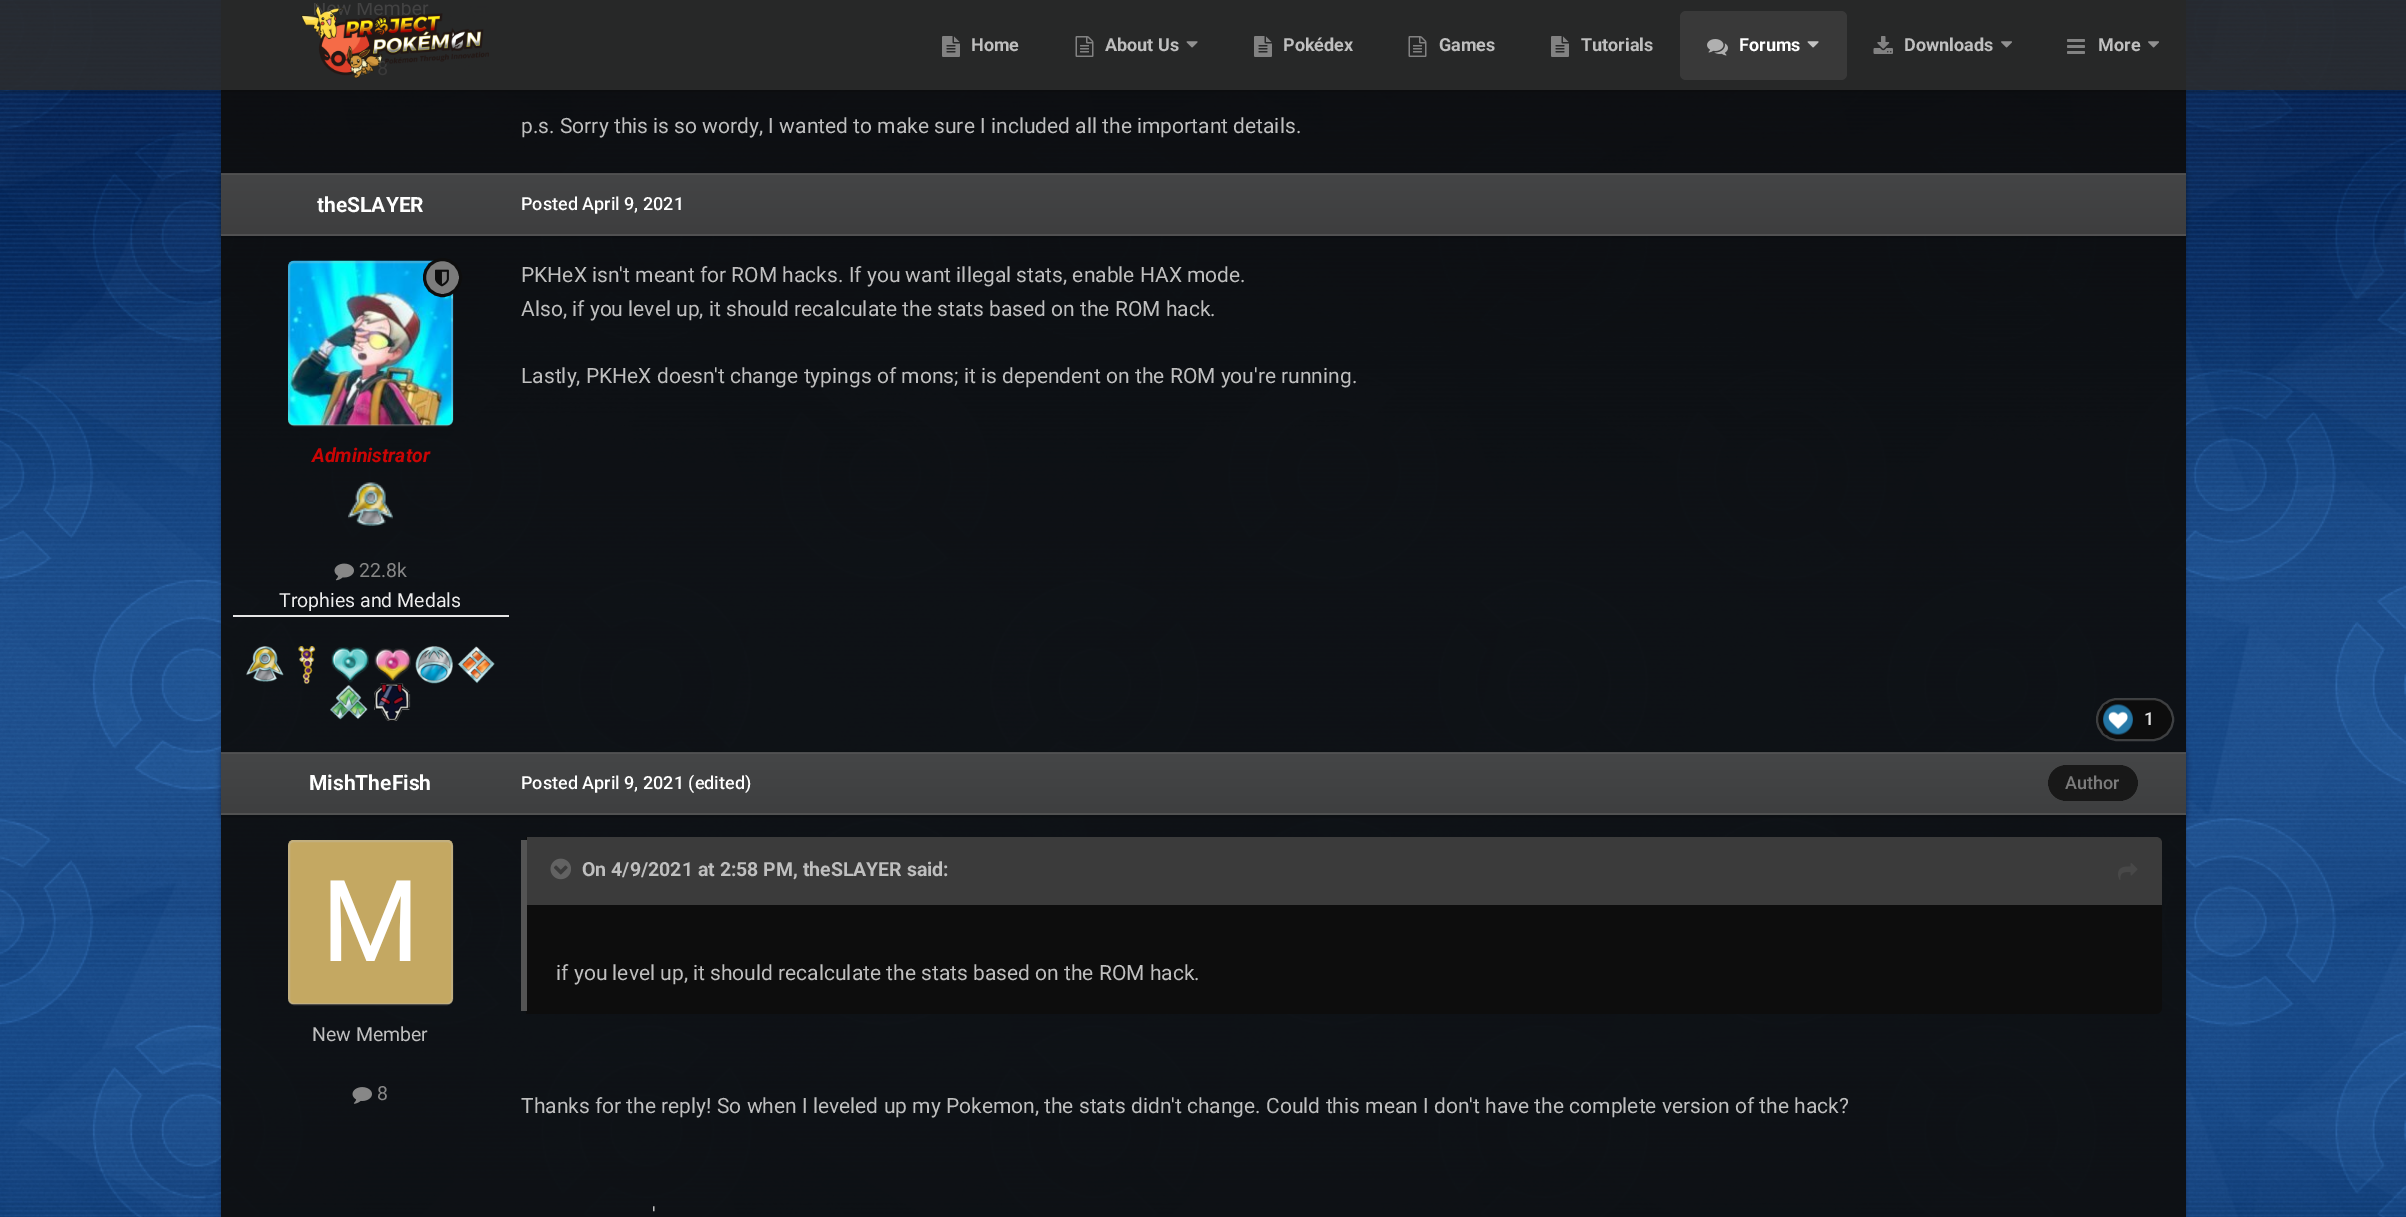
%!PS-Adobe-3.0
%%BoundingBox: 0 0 2406 1217
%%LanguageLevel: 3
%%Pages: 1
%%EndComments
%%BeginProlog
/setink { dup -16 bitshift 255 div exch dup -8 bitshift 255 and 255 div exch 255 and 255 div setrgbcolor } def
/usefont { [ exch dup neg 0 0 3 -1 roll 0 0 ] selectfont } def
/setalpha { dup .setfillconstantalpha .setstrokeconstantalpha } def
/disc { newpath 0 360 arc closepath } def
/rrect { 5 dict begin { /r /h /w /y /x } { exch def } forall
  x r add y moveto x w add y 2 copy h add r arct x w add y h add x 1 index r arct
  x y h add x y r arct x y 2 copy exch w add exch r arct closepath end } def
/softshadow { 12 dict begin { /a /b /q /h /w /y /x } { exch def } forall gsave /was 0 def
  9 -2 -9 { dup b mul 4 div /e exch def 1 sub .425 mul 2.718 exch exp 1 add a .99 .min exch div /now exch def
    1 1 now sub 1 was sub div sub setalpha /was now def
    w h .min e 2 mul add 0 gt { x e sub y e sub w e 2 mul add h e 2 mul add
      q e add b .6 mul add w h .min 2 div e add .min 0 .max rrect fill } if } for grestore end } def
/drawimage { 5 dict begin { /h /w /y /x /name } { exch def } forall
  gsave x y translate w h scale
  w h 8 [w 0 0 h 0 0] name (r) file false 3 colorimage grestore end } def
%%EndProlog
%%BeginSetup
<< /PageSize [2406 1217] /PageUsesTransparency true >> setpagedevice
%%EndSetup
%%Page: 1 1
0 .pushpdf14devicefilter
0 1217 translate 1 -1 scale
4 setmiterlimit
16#FFFFFF setink
0 0 2406 1217 rectfill
(img1.raw) 0 0 2406 1217 drawimage
(img2.raw) 0 0 2406 1217 drawimage
gsave
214 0 moveto 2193 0 lineto 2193 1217 lineto 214 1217 lineto closepath 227 -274 moveto 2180 -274 lineto 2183.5 -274 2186 -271.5 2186 -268 curveto 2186 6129 lineto 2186 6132.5 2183.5 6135 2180 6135 curveto 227 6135 lineto 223.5 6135 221 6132.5 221 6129 curveto 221 -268 lineto 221 -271.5 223.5 -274 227 -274 curveto closepath eoclip newpath
16#000000 setink
221 -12 1965 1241 6 2 0.2 softshadow
grestore
0.93 setalpha
16#0D0D0D setink
221 0 1965 1217 rectfill
0.1 setalpha
16#000000 setink
0 90 2406 2 rectfill
1 setalpha
(img15.raw) 353 66 19 12 drawimage
gsave
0 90 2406 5 rectclip
0 2 2406 90 0 3 0.15 softshadow
grestore
0.85 setalpha
16#2C2C2C setink
0 0 2406 90 rectfill
1 setalpha
(img3.raw) 301 3 188 76 drawimage
(img4.raw) 942 36 18 21 drawimage
/Roboto-Bold 18 usefont
16#BFBFBF setink
971 51 moveto (Home) show
(img5.raw) 1075 36 19 21 drawimage
1105 51 moveto (About Us) show
(img6.raw) 1186 41 12 7 drawimage
(img7.raw) 1254 36 18 21 drawimage
1283 51 moveto (Pokédex) show
(img8.raw) 1408 36 19 21 drawimage
1439 51 moveto (Games) show
(img4.raw) 1551 36 18 21 drawimage
1581 51 moveto (Tutorials) show
16#393939 setink
1680 11 167 69 6 rrect fill
(img9.raw) 1707 39 21 17 drawimage
16#FFFFFF setink
1739 51 moveto (Forums) show
(img10.raw) 1807 41 12 7 drawimage
(img11.raw) 1873 36 20 18 drawimage
16#BFBFBF setink
1904 51 moveto (Downloads) show
(img12.raw) 2001 41 11 7 drawimage
(img13.raw) 2067 39 18 15 drawimage
2098 51 moveto (More) show
(img14.raw) 2148 41 11 7 drawimage
/Roboto-Regular 21 usefont
521 133 moveto (p.s. Sorry this is so wordy, I wanted to make sure I included all the important details.) show
16#000000 setink
221 174 1965 63 0 3 0.3 softshadow
gsave 221 173 moveto 2186 173 lineto 2186 174 lineto 221 174 lineto closepath clip newpath
<< /ShadingType 2 /ColorSpace /DeviceRGB /Coords [1203 114 1203 174] /Extend [true true] /Function << /FunctionType 2 /Domain [0 1] /C0 [0.267 0.271 0.275] /C1 [0.243 0.243 0.247] /N 1 >> >> shfill grestore
gsave 221 174 moveto 2186 174 lineto 2186 234 lineto 221 234 lineto closepath clip newpath
<< /ShadingType 2 /ColorSpace /DeviceRGB /Coords [1203 174 1203 234] /Extend [true true] /Function << /FunctionType 2 /Domain [0 1] /C0 [0.267 0.271 0.275] /C1 [0.243 0.243 0.247] /N 1 >> >> shfill grestore
0.1 setalpha
16#BFBFBF setink
221 173 1965 2 rectfill
1 setalpha
16#515152 setink
221 234 1965 2 rectfill
/Roboto-Bold 21 usefont
16#FFFFFF setink
317 212 moveto (theSLAYER) show
16#0D0D0D setink
288 261 165 165 6 rrect fill
(img17.raw) 288 260 165 166 drawimage
0.3 setalpha
16#BFBFBF setink
2 setlinewidth
289 262 163 163 5 rrect stroke
1 setalpha
16#7B7B7B setink
442.5 277.5 18 disc gsave fill grestore
16#0D0D0D setink
3 setlinewidth
stroke
(img16.raw) 435 269 14 18 drawimage
/Roboto-BoldItalic 19.5 usefont
16#CA0404 setink
312 462 moveto (Administrator) show
(img18.raw) 348 482 45 44 drawimage
(img19.raw) 334 563 20 18 drawimage
/Roboto-Regular 19.5 usefont
16#878787 setink
359 577 moveto (22.8k) show
16#E5E5E5 setink
233 615 276 2 rectfill
16#EDEDED setink
279 607 moveto (Trophies and Medals) show
(img20.raw) 246 646 38 36 drawimage
(img21.raw) 298 646 18 38 drawimage
(img22.raw) 331 647 38 36 drawimage
(img23.raw) 374 648 37 34 drawimage
(img24.raw) 415 646 38 38 drawimage
(img25.raw) 457 646 38 38 drawimage
(img26.raw) 330 685 38 35 drawimage
(img27.raw) 374 683 37 38 drawimage
/Roboto-Medium 18 usefont
16#FFFFFF setink
521 210 moveto (Posted April 9, 2021) show
/Roboto-Regular 21 usefont
16#BFBFBF setink
[
    [(PKHeX isn't meant for ROM hacks. If you want illegal stats, enable HAX mode.) 521 282]
    [(Also, if you level up, it should recalculate the stats based on the ROM hack.) 521 316]
    [(Lastly, PKHeX doesn't change typings of mons; it is dependent on the ROM you're running.) 521 383]
] { aload pop moveto show } forall
16#0D0D0D setink
2097 699 75 41 20.5 rrect fill
0.4 setalpha
16#878787 setink
2 setlinewidth
2097 699 76 41 20.5 rrect stroke
1 setalpha
(img28.raw) 2103 704 30 31 drawimage
/Roboto-Medium 18 usefont
16#E3E3E3 setink
2144 725 moveto (1) show
16#000000 setink
221 753 1965 63 0 3 0.3 softshadow
gsave 221 752 moveto 2186 752 lineto 2186 753 lineto 221 753 lineto closepath clip newpath
<< /ShadingType 2 /ColorSpace /DeviceRGB /Coords [1203 693 1203 753] /Extend [true true] /Function << /FunctionType 2 /Domain [0 1] /C0 [0.271 0.275 0.278] /C1 [0.243 0.247 0.251] /N 1 >> >> shfill grestore
gsave 221 753 moveto 2186 753 lineto 2186 813 lineto 221 813 lineto closepath clip newpath
<< /ShadingType 2 /ColorSpace /DeviceRGB /Coords [1203 753 1203 813] /Extend [true true] /Function << /FunctionType 2 /Domain [0 1] /C0 [0.271 0.275 0.278] /C1 [0.243 0.247 0.251] /N 1 >> >> shfill grestore
0.1 setalpha
16#BFBFBF setink
221 752 1965 2 rectfill
1 setalpha
16#515252 setink
221 813 1965 2 rectfill
/Roboto-Bold 21 usefont
16#FFFFFF setink
309 790 moveto (MishTheFish) show
16#0D0D0D setink
288 840 165 165 6 rrect fill
(img29.raw) 288 840 165 165 drawimage
0.3 setalpha
16#BFBFBF setink
289 841 163 163 5 rrect stroke
/Roboto-Regular 19.5 usefont
1 setalpha
312 1041 moveto (New Member) show
(img30.raw) 352 1087 20 17 drawimage
16#878787 setink
377 1100 moveto (8) show
/Roboto-Medium 18 usefont
16#FFFFFF setink
521 789 moveto (Posted April 9, 2021 \(edited\)) show
16#7B7B7B setink
2048 765 90 36 18 rrect fill
0.9 setalpha
16#0D0D0D setink
2048 765 90 36 18 rrect fill
1 setalpha
16#7B7B7B setink
2065 789 moveto (Author) show
16#0D0D0D setink
526 837 moveto 2156 837 lineto 2159 837 2162 840 2162 843 curveto 2162 1008 lineto 2162 1011 2159 1014 2156 1014 curveto 526 1014 lineto closepath fill
16#545454 setink
521 840 6 171 rectfill
16#3B3B3B setink
527 837 moveto 2156 837 lineto 2159.5 837 2162 839.5 2162 843 curveto 2162 905 lineto 527 905 lineto closepath fill
(img31.raw) 550 858 21 22 drawimage
/Roboto-Bold 19.5 usefont
16#BFBFBF setink
582 876 moveto (On 4/9/2021 at 2:58 PM, theSLAYER said:) show
(img32.raw) 2118 863 20 17 drawimage
/Roboto-Regular 21 usefont
[
    [(if you level up, it should recalculate the stats based on the ROM hack.) 556 980]
    [(Thanks for the reply! So when I leveled up my Pokemon, the stats didn't change. Could this mean I don't have the complete version of the hack?) 521 1113]
    [(') 652 1222]
] { aload pop moveto show } forall
.poppdf14devicefilter showpage
%%EOF
